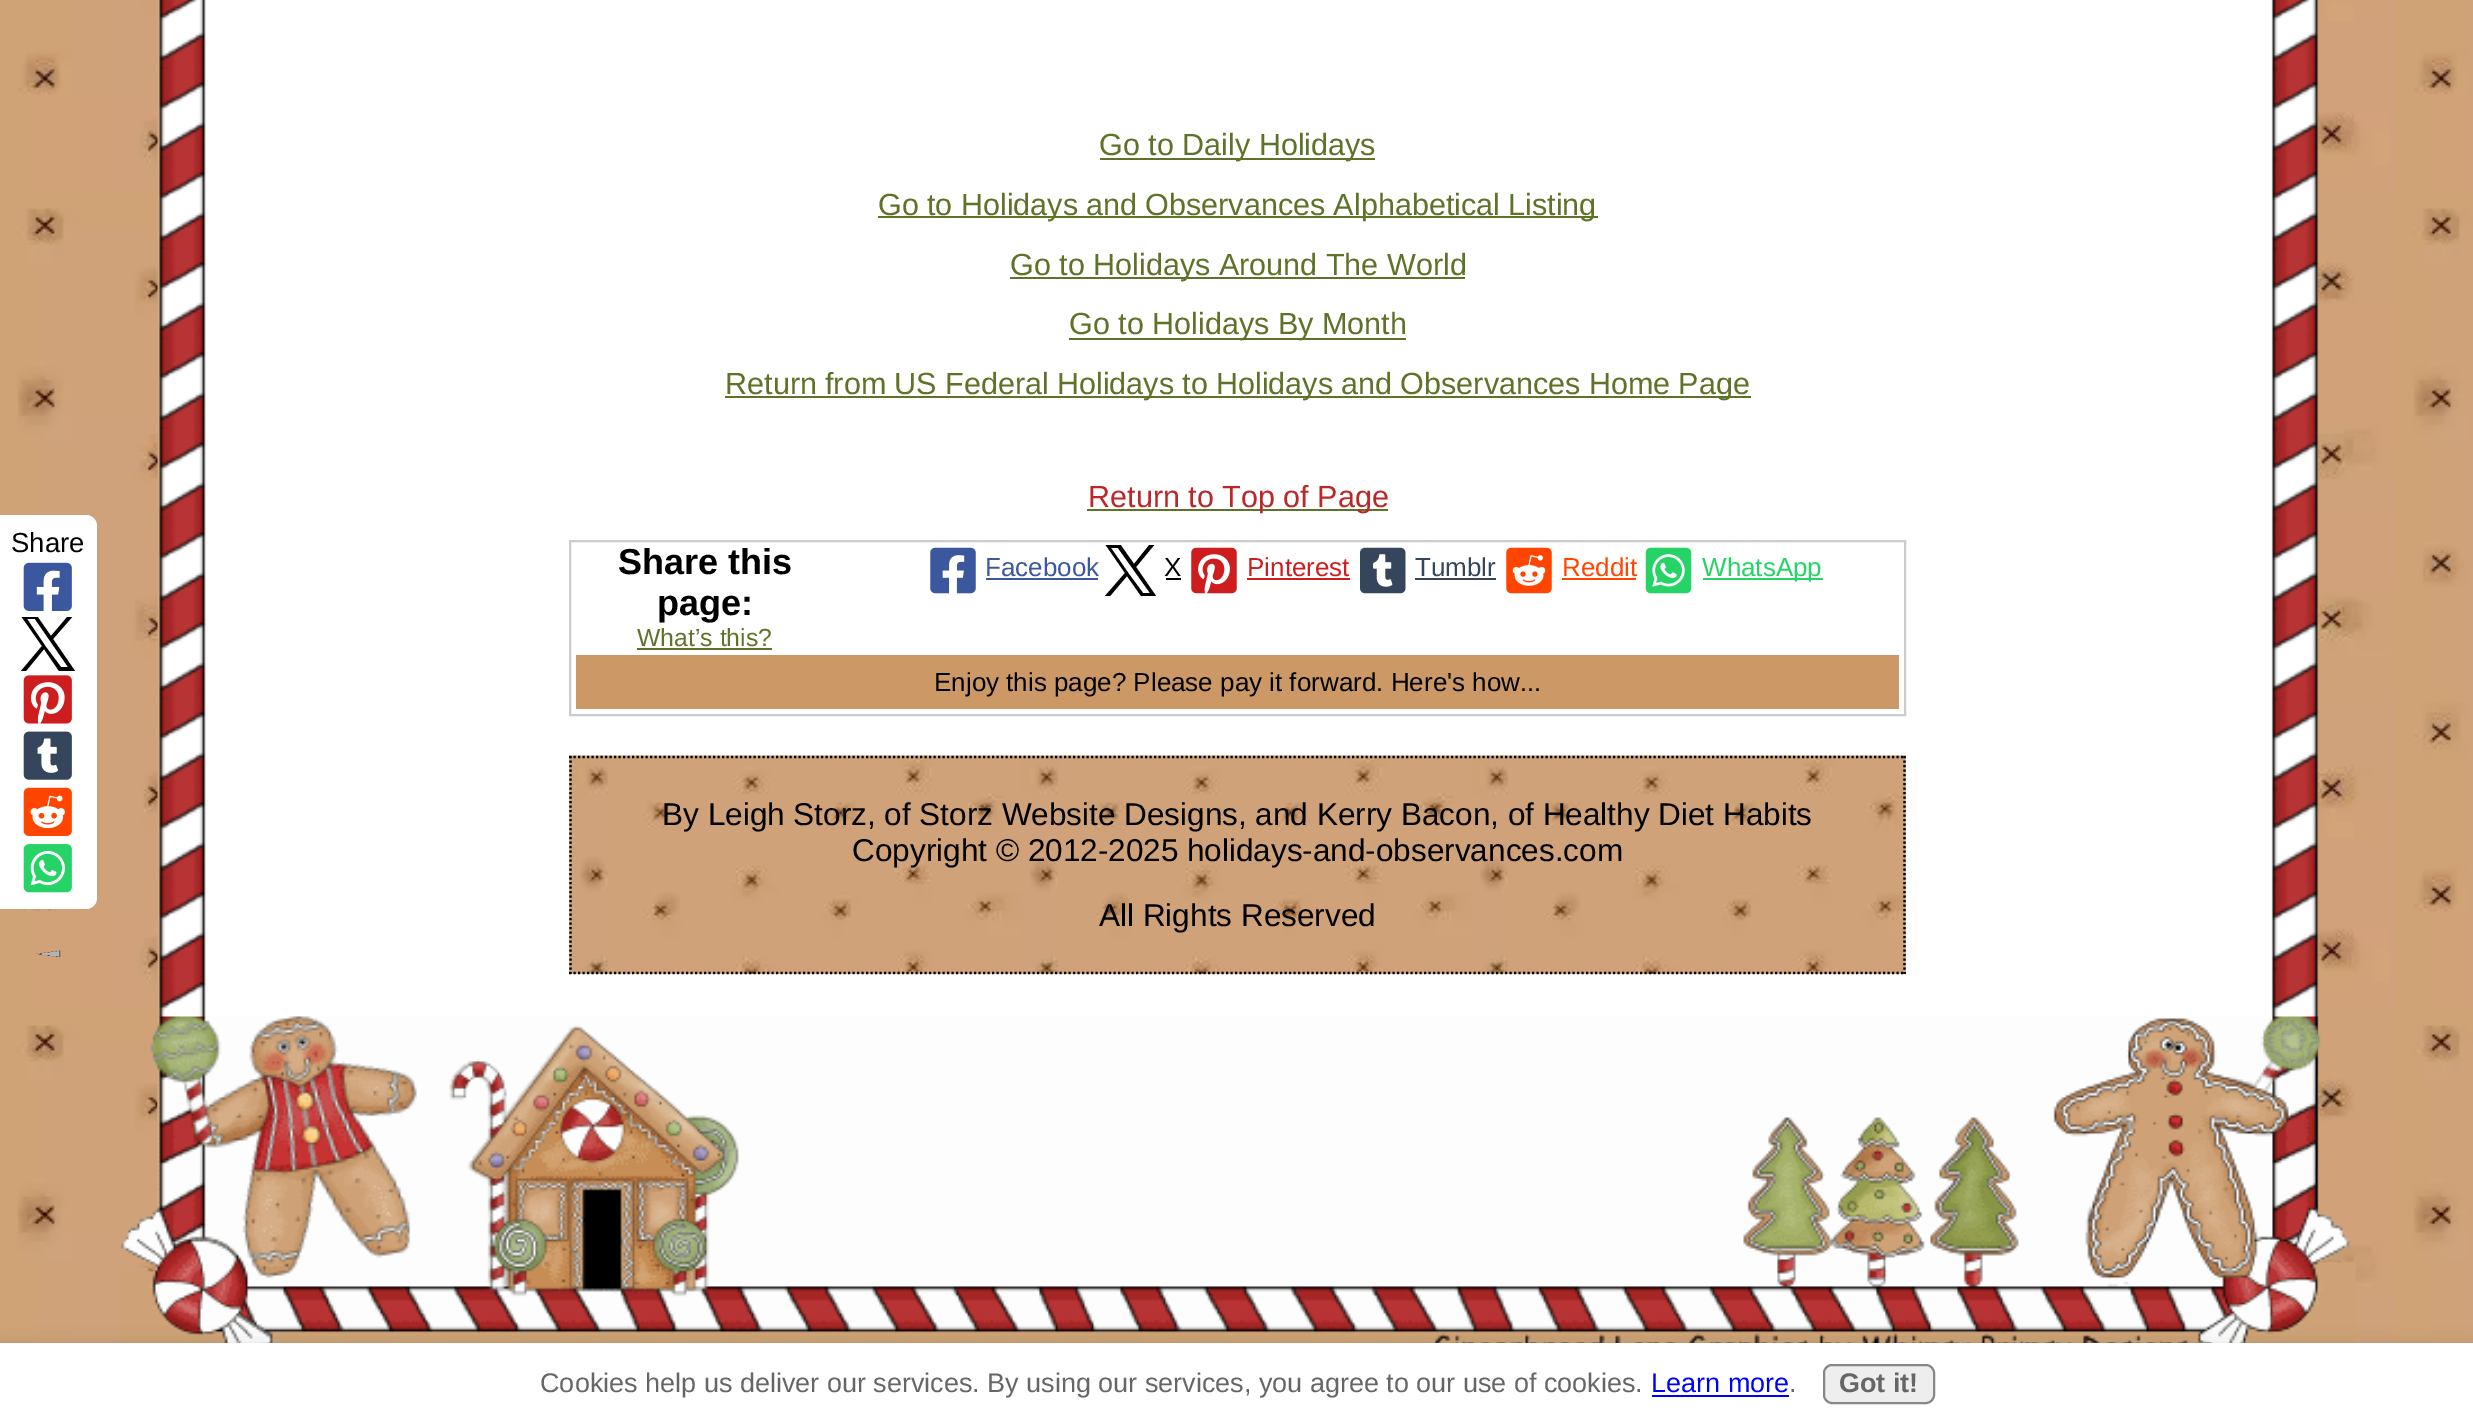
%!PS-Adobe-3.0
%%BoundingBox: 0 0 2473 1421
%%LanguageLevel: 3
%%Pages: 1
%%EndComments
%%BeginProlog
/setink { dup -16 bitshift 255 div exch dup -8 bitshift 255 and 255 div exch 255 and 255 div setrgbcolor } def
/usefont { [ exch dup neg 0 0 3 -1 roll 0 0 ] selectfont } def
/setalpha { dup .setfillconstantalpha .setstrokeconstantalpha } def
/rrect { 5 dict begin { /r /h /w /y /x } { exch def } forall
  x r add y moveto x w add y 2 copy h add r arct x w add y h add x 1 index r arct
  x y h add x y r arct x y 2 copy exch w add exch r arct closepath end } def
/softshadow { 12 dict begin { /a /b /q /h /w /y /x } { exch def } forall gsave /was 0 def
  9 -2 -9 { dup b mul 4 div /e exch def 1 sub .425 mul 2.718 exch exp 1 add a .99 .min exch div /now exch def
    1 1 now sub 1 was sub div sub setalpha /was now def
    w h .min e 2 mul add 0 gt { x e sub y e sub w e 2 mul add h e 2 mul add
      q e add b .6 mul add w h .min 2 div e add .min 0 .max rrect fill } if } for grestore end } def
/drawimage { 5 dict begin { /h /w /y /x /name } { exch def } forall
  gsave x y translate w h scale
  w h 8 [w 0 0 h 0 0] name (r) file false 3 colorimage grestore end } def
%%EndProlog
%%BeginSetup
<< /PageSize [2473 1421] /PageUsesTransparency true >> setpagedevice
%%EndSetup
%%Page: 1 1
0 .pushpdf14devicefilter
0 1421 translate 1 -1 scale
4 setmiterlimit
16#FFFFFF setink
0 0 2473 1421 rectfill
(img1.raw) 0 0 2473 1343 drawimage
(img2.raw) 156 0 2163 1272 drawimage
0 515 moveto 86 515 lineto 92 515 97 520 97 526 curveto 97 898 lineto 97 904 92 909 86 909 curveto 0 909 lineto closepath fill
/LiberationSans-Regular 27.5 usefont
16#000000 setink
11 552 moveto (Share) show
(img3.raw) 23 562 49 49 drawimage
gsave
20 617 57 56 rectclip
53 639 moveto 73 616 lineto 68 616 lineto 51 636 lineto 37 616 lineto 21 616 lineto 42 646 lineto 21 671 lineto 26 671 lineto 44 649 lineto 59 671 lineto 75 671 lineto closepath 46 647 moveto 27 619 lineto 35 619 lineto 68 667 lineto 61 667 lineto closepath fill
grestore
(img4.raw) 23 675 49 49 drawimage
(img5.raw) 23 731 49 49 drawimage
(img6.raw) 23 787 49 49 drawimage
(img7.raw) 23 844 49 49 drawimage
(img8.raw) 36 950 25 8 drawimage
(img9.raw) 119 1016 2237 327 drawimage
16#5E7228 setink
1100 158 275 2 rectfill
/LiberationSans-Regular 30.55 usefont
1099 155 moveto (Go to Daily Holidays) show
878 216 720 2 rectfill
878 215 moveto -0.25 0 32 (Go to Holidays and Observances Alphabetical Listing) widthshow
1010 277 455 2 rectfill
1010 275 moveto (Go to Holidays Around The World) show
1069 338 337 2 rectfill
1069 334 moveto (Go to Holidays By Month) show
725 396 1026 2 rectfill
725 394 moveto -0.25 0 32 (Return from US Federal Holidays to Holidays and Observances Home Page) widthshow
1087 509 301 2 rectfill
16#BC2727 setink
1088 507 moveto (Return to Top of Page) show
16#CCCCCC setink
2 setlinewidth
570 541 1335 174 rectstroke
/LiberationSans-Bold 36 usefont
16#000000 setink
618 574 moveto (Share this) show
657 615 moveto (page:) show
/LiberationSans-Regular 24.75 usefont
16#5E7228 setink
637 646 moveto (What’s this?) show
637 648 135 2 rectfill
(img10.raw) 930 547 46 47 drawimage
/LiberationSans-Regular 26 usefont
16#3B579D setink
985 576 moveto (Facebook) show
986 578 112 2 rectfill
gsave
1105 545 54 51 rectclip
16#000000 setink
1136 567 moveto 1155 544 lineto 1150 544 lineto 1134 564 lineto 1120 544 lineto 1105 544 lineto 1125 573 lineto 1105 596 lineto 1110 596 lineto 1127 576 lineto 1141 596 lineto 1156 596 lineto closepath 1129 574 moveto 1111 548 lineto 1118 548 lineto 1150 593 lineto 1143 593 lineto closepath fill
grestore
16#000000 setink
1164 576 moveto (X) show
1166 578 15 2 rectfill
(img11.raw) 1191 547 46 47 drawimage
16#CD1D1F setink
1247 576 moveto (Pinterest) show
1247 578 103 2 rectfill
(img12.raw) 1360 547 46 47 drawimage
16#35465C setink
1415 576 moveto (Tumblr) show
1415 578 81 2 rectfill
(img13.raw) 1506 547 46 47 drawimage
16#FF4500 setink
1562 576 moveto (Reddit) show
1562 578 74 2 rectfill
(img14.raw) 1645 547 47 47 drawimage
16#25D366 setink
1703 578 120 2 rectfill
1702 576 moveto (WhatsApp) show
16#CC9966 setink
576 655 1323 54 rectfill
16#000000 setink
934 691 moveto (Enjoy this page? Please pay it forward. Here's how...) show
(img15.raw) 569 755 1337 219 drawimage
2.2 setlinewidth
[2.25 2.25] 0 setdash
569 757 moveto 1906 757 lineto stroke
1904.5 756 moveto 1904.5 974 lineto stroke
569 973 moveto 1906 973 lineto stroke
570.5 756 moveto 570.5 974 lineto stroke
/LiberationSans-Regular 31.5 usefont
[
    [(By Leigh Storz, of Storz Website Designs, and Kerry Bacon, of Healthy Diet Habits) 662 825]
    [(Copyright © 2012-2025 holidays-and-observances.com) 852 861]
    [(All Rights Reserved) 1099 926]
] { aload pop moveto show } forall
-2 1350 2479 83 0 11 0.2 softshadow
16#FFFFFF setink
0 1343 2473 78 rectfill
/LiberationSans-Regular 27 usefont
16#666666 setink
540 1392 moveto (Cookies help us deliver our services. By using our services, you agree to our use of cookies.) show
16#0000FF setink
1651 1392 moveto (Learn more) show
1652 1395 137 2 rectfill
16#666666 setink
1789 1392 moveto (.) show
16#EEEEEE setink
1824 1365 110 38 8 rrect gsave fill grestore
16#888888 setink
2 setlinewidth
[] 0 setdash
stroke
/LiberationSans-Bold 27 usefont
16#666666 setink
1839 1392 moveto (Got it!) show
.poppdf14devicefilter showpage
%%EOF
